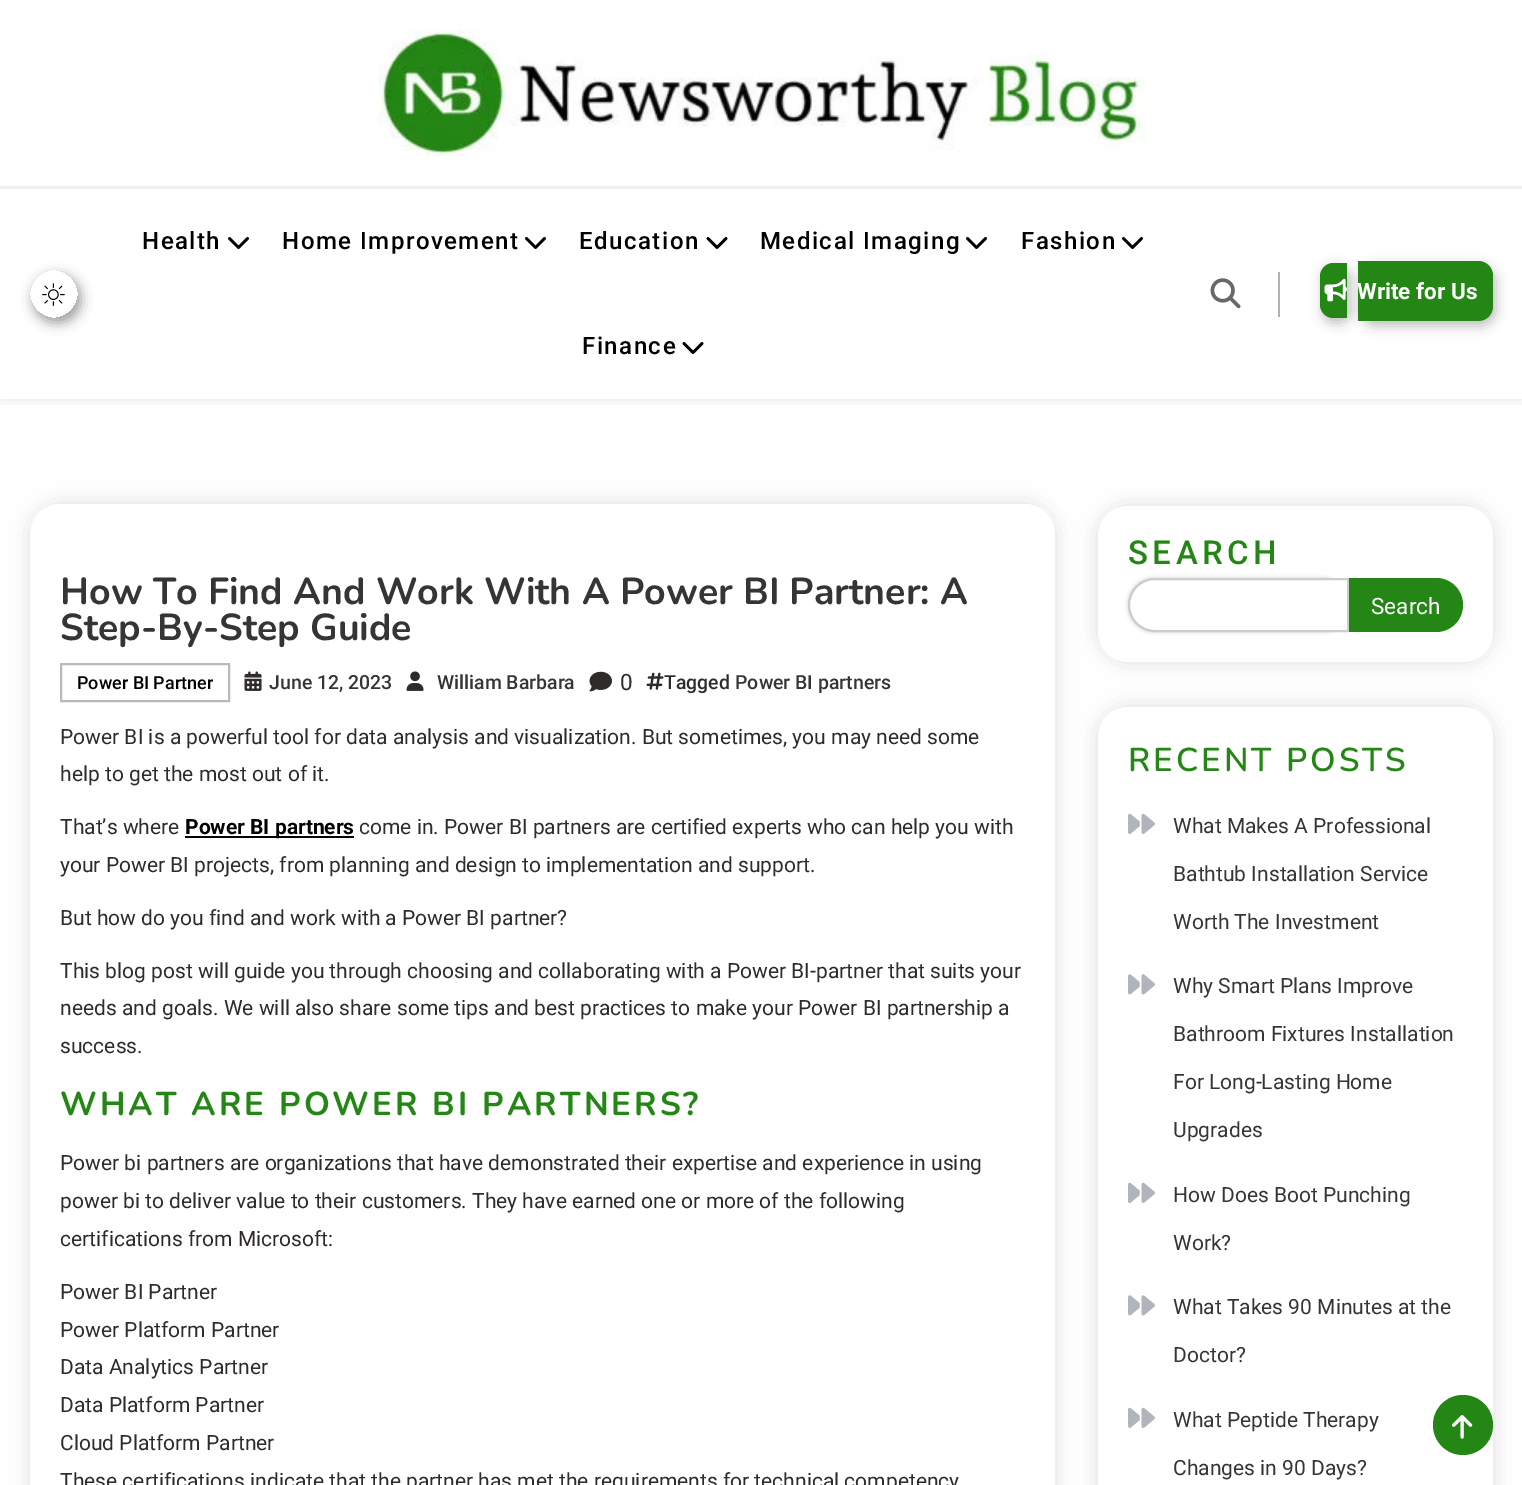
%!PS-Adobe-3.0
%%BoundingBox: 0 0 1522 1485
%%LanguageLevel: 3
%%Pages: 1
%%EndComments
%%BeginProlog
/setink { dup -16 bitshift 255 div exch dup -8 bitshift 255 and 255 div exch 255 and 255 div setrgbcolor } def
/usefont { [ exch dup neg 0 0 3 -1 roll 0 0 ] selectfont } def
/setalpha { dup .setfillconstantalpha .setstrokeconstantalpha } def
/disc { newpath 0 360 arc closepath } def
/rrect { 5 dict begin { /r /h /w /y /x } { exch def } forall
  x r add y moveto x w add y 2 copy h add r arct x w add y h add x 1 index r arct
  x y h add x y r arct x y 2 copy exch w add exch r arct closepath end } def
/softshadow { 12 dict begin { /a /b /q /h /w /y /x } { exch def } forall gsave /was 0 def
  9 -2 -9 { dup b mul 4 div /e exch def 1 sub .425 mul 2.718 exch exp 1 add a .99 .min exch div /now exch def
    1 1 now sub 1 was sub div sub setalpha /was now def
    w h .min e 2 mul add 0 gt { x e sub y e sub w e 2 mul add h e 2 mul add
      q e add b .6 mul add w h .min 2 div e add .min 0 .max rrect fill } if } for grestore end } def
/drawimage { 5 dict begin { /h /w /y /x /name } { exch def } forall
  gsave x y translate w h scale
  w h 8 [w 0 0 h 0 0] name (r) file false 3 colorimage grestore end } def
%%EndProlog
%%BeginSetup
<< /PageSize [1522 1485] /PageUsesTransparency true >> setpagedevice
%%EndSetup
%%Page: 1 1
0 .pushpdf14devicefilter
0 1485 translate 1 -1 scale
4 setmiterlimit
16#FFFFFF setink
0 0 1522 1485 rectfill
gsave
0 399 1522 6 rectclip
16#000000 setink
0 0 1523 399 0 7.5 0.1 softshadow
grestore
(img1.raw) 378 30 768 126 drawimage
16#EFEFEF setink
0 186 1522 3 rectfill
gsave
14 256 moveto 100 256 lineto 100 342 lineto 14 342 lineto closepath 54 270 moveto 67.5 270 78 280.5 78 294 curveto 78 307.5 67.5 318 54 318 curveto 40.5 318 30 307.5 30 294 curveto 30 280.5 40.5 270 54 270 curveto closepath eoclip newpath
16#000000 setink
33 275 48 48 24 6 0.37 softshadow
grestore
(img2.raw) 42 283 23 23 drawimage
/Roboto-Medium 24 usefont
16#000000 setink
142 249 moveto 1.5 0 (Health) ashow
(img3.raw) 228 237 21 12 drawimage
282 249 moveto 1.5 0 (Home Improvement) ashow
(img3.raw) 525 237 21 12 drawimage
579 249 moveto 1.5 0 (Education) ashow
(img4.raw) 706 237 22 12 drawimage
760 249 moveto 1.5 0 (Medical Imaging) ashow
(img3.raw) 966 237 21 12 drawimage
1021 249 moveto 1.5 0 (Fashion) ashow
(img3.raw) 1122 237 21 12 drawimage
582 354 moveto 1.5 0 (Finance) ashow
(img4.raw) 682 342 22 12 drawimage
(img5.raw) 1210 278 31 31 drawimage
16#B3B3B3 setink
1278 272 2 45 rectfill
16#000000 setink
1323 267 27 56 13.5 6 0.25 softshadow
16#248615 setink
1333.5 263 moveto 1347 263 lineto 1347 318 lineto 1333.5 318 lineto 1326 318 1320 312 1320 304.5 curveto 1320 276.5 lineto 1320 269 1326 263 1333.5 263 curveto closepath fill
16#000000 setink
1361 266 135 60 15 6 0.25 softshadow
16#248615 setink
1358 261 moveto 1478 261 lineto 1486.5 261 1493 267.5 1493 276 curveto 1493 306 lineto 1493 314.5 1486.5 321 1478 321 curveto 1358 321 lineto closepath fill
(img6.raw) 1324 278 23 24 drawimage
/Roboto-Bold 22.5 usefont
16#FFFFFF setink
1357 299 moveto (Write for Us) show
16#000000 setink
30 504 1025 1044 30 11 0.13 softshadow
16#FFFFFF setink
30 504 1025 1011 30 rrect fill
/Nunito-Bold 37.5 usefont
16#353535 setink
60 604 moveto (How To Find And Work With A Power BI Partner: A) show
60 640 moveto (Step-By-Step Guide) show
16#BDB9B9 setink
2 setlinewidth
61 664 168 37 rectstroke
/Roboto-Medium 18 usefont
16#000000 setink
77 689 moveto (Power BI Partner) show
(img7.raw) 244 671 18 20 drawimage
/Roboto-Medium 19.5 usefont
16#353535 setink
269 689 moveto (June 12, 2023) show
(img8.raw) 406 671 18 20 drawimage
437 689 moveto (William Barbara) show
(img9.raw) 589 671 23 21 drawimage
/Roboto-Regular 22.5 usefont
16#302B2B setink
620 690 moveto (0) show
(img10.raw) 646 672 18 18 drawimage
/Roboto-Medium 19.5 usefont
664 689 moveto (Tagged) show
16#353535 setink
735 689 moveto (Power BI partners) show
/Roboto-Regular 21 usefont
16#302B2B setink
[
    [(Power BI is a powerful tool for data analysis and visualization. But sometimes, you may need some) 60 744]
    [(help to get the most out of it.) 60 781]
    [(That’s where) 60 834]
] { aload pop moveto show } forall
16#000000 setink
185 836 169 2 rectfill
/Roboto-Bold 21 usefont
185 834 moveto (Power BI partners) show
/Roboto-Regular 21 usefont
16#302B2B setink
[
    [(come in. Power BI partners are certified experts who can help you with) 359 834]
    [(your Power BI projects, from planning and design to implementation and support.) 60 872]
    [(But how do you find and work with a Power BI partner?) 60 925]
    [(This blog post will guide you through choosing and collaborating with a Power BI-partner that suits your) 60 978]
    [(needs and goals. We will also share some tips and best practices to make your Power BI partnership a) 60 1015]
    [(success.) 60 1053]
] { aload pop moveto show } forall
/Nunito-Bold 33 usefont
16#248615 setink
60 1115 moveto 3 0 (WHAT ARE POWER BI PARTNERS?) ashow
/Roboto-Regular 21 usefont
16#302B2B setink
[
    [(Power bi partners are organizations that have demonstrated their expertise and experience in using) 60 1170]
    [(power bi to deliver value to their customers. They have earned one or more of the following) 60 1208]
    [(certifications from Microsoft:) 60 1246]
    [(Power BI Partner) 60 1299]
    [(Power Platform Partner) 60 1337]
    [(Data Analytics Partner) 60 1374]
    [(Data Platform Partner) 60 1412]
    [(Cloud Platform Partner) 60 1450]
    [(These certifications indicate that the partner has met the requirements for technical competency) 60 1488]
] { aload pop moveto show } forall
16#000000 setink
1098 506 395 156 30 11 0.13 softshadow
16#FFFFFF setink
1098 506 395 156 30 rrect fill
/Roboto-Medium 33 usefont
16#248615 setink
1128 564 moveto 4.5 0 (SEARCH) ashow
16#050505 setink
1128 578 221 54 27 2 0.19 softshadow
16#FFFFFF setink
1155 579 moveto 1348 579 lineto 1348 631 lineto 1155 631 lineto 1140.5 631 1129 619.5 1129 605 curveto 1129 590.5 1140.5 579 1155 579 curveto closepath gsave fill grestore
16#CCCCCC setink
stroke
16#248615 setink
1349 578 moveto 1436 578 lineto 1451 578 1463 590 1463 605 curveto 1463 620 1451 632 1436 632 curveto 1349 632 lineto closepath fill
/Roboto-Regular 22.5 usefont
16#FFFFFF setink
1371 614 moveto (Search) show
16#000000 setink
1098 707 395 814 30 11 0.13 softshadow
16#FFFFFF setink
1098 707 395 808 30 rrect fill
/Nunito-SemiBold 33 usefont
16#248615 setink
1128 771 moveto 3 0 (RECENT POSTS) ashow
(img11.raw) 1128 813 27 21 drawimage
/Roboto-Regular 21 usefont
16#353535 setink
[
    [(What Makes A Professional) 1173 833]
    [(Bathtub Installation Service) 1173 881]
    [(Worth The Investment) 1173 929]
] { aload pop moveto show } forall
(img12.raw) 1128 974 27 21 drawimage
[
    [(Why Smart Plans Improve) 1173 993]
    [(Bathroom Fixtures Installation) 1173 1041]
    [(For Long-Lasting Home) 1173 1089]
    [(Upgrades) 1173 1137]
] { aload pop moveto show } forall
(img11.raw) 1128 1182 27 21 drawimage
1173 1202 moveto (How Does Boot Punching) show
1173 1250 moveto (Work?) show
(img12.raw) 1128 1295 27 21 drawimage
1173 1314 moveto (What Takes 90 Minutes at the) show
1173 1362 moveto (Doctor?) show
(img11.raw) 1128 1407 27 21 drawimage
1173 1427 moveto (What Peptide Therapy) show
1173 1475 moveto (Changes in 90 Days?) show
16#248615 setink
1463 1425 30 disc fill
(img13.raw) 1452 1415 21 24 drawimage
.poppdf14devicefilter showpage
%%EOF
